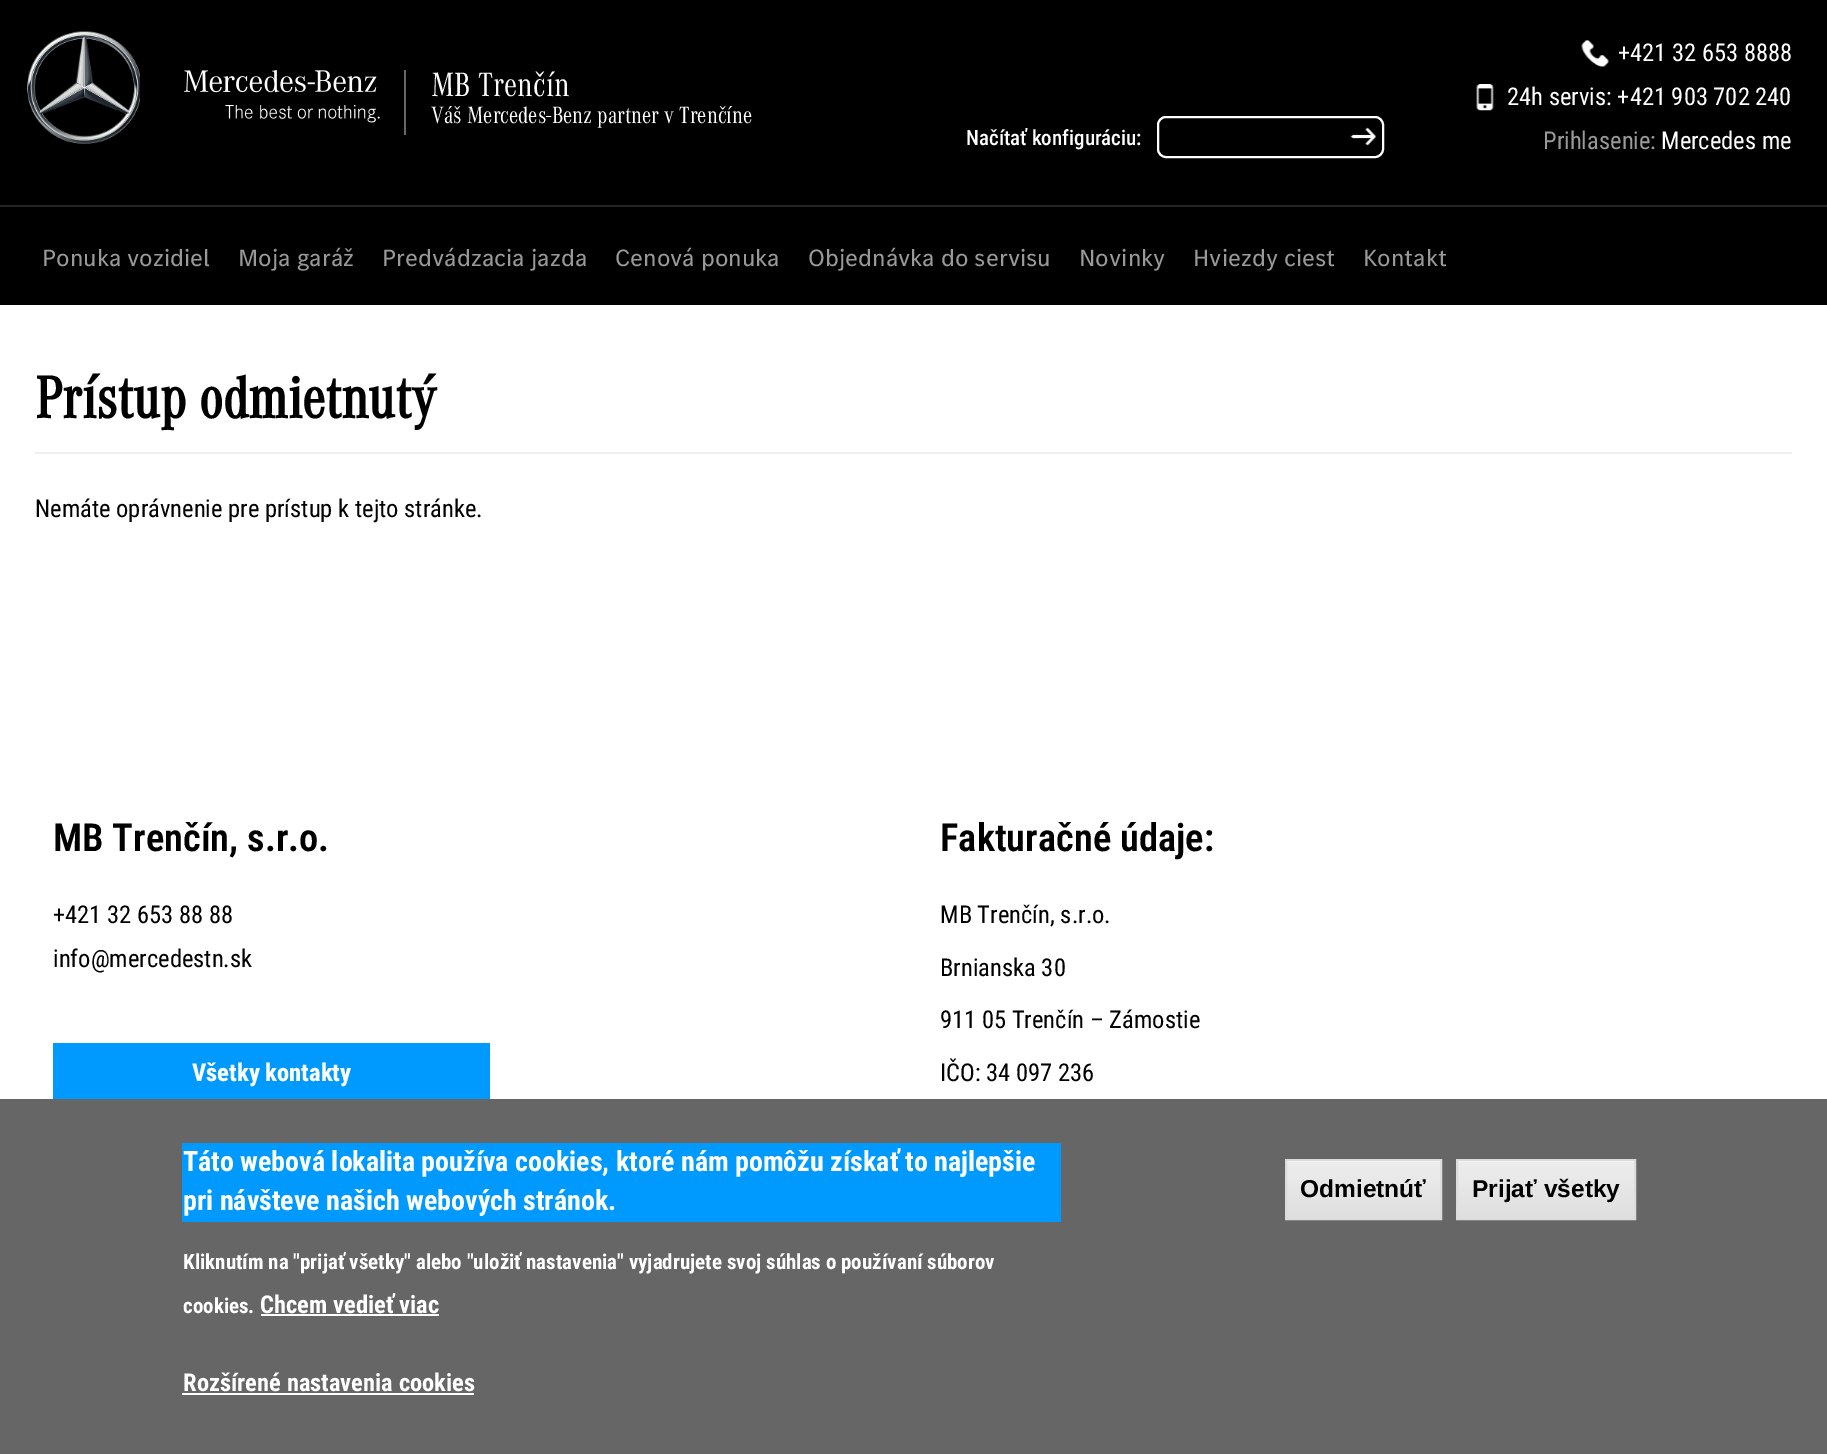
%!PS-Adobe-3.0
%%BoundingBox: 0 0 1827 1454
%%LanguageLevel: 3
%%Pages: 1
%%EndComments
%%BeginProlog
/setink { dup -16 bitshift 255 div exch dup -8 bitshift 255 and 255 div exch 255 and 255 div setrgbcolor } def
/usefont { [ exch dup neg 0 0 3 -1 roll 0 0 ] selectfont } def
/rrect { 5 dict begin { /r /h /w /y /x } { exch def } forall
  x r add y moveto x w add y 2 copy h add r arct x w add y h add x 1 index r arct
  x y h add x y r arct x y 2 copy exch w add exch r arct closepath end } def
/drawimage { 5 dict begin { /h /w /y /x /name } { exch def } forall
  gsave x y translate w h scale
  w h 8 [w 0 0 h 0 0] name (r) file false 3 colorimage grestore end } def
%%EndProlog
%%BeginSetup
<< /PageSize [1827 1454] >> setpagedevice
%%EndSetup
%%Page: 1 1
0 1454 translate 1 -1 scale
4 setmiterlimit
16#FFFFFF setink
0 0 1827 1454 rectfill
16#000000 setink
0 0 1827 305 rectfill
(img1.raw) 27 31 113 113 drawimage
16#666666 setink
404 70 2 65 rectfill
(img2.raw) 184 70 196 53 drawimage
/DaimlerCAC-Regular 35 usefont
16#FFFFFF setink
431 96 moveto (MB Trenčín) show
/DaimlerCAC-Regular 24.5 usefont
431 123 moveto (Váš Mercedes-Benz partner v Trenčíne) show
(img3.raw) 1581 40 28 27 drawimage
/RobotoCondensed-Regular 24.5 usefont
1618 61 moveto (+421 32 653 8888) show
(img4.raw) 1476 84 18 27 drawimage
1507 105 moveto (24h servis: +421 903 702 240) show
/RobotoCondensed-Medium 21 usefont
966 145 moveto (Načítať konfiguráciu:) show
2 setlinewidth
1158 117 225 40 8 rrect stroke
(img5.raw) 1350 127 26 19 drawimage
/RobotoCondensed-Regular 24.5 usefont
16#999999 setink
1543 149 moveto (Prihlasenie:) show
16#FFFFFF setink
1661 149 moveto (Mercedes me) show
/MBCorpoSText-Regular 24.5 usefont
16#999999 setink
[
    [(Ponuka vozidiel) 42 266]
    [(Moja garáž) 238 266]
    [(Predvádzacia jazda) 382 266]
    [(Cenová ponuka) 615 266]
    [(Objednávka do servisu) 808 266]
    [(Novinky) 1079 266]
    [(Hviezdy ciest) 1193 266]
    [(Kontakt) 1363 266]
] { aload pop moveto show } forall
16#262525 setink
0 205 1827 2 rectfill
16#EEEEEE setink
35 452 1757 2 rectfill
/DaimlerCAC-Bold 61.25 usefont
16#000000 setink
35 418 moveto (Prístup odmietnutý) show
/RobotoCondensed-Regular 24.5 usefont
35 517 moveto (Nemáte oprávnenie pre prístup k tejto stránke.) show
/RobotoCondensed-SemiBold 38.5 usefont
53 851 moveto (MB Trenčín, s.r.o.) show
/RobotoCondensed-Regular 24.5 usefont
53 923 moveto (+421 32 653 88 88) show
53 967 moveto (info@mercedestn.sk) show
16#009AFF setink
53 1043 437 56 rectfill
/RobotoCondensed-ExtraBold 24.5 usefont
16#FFFFFF setink
192 1081 moveto (Všetky kontakty) show
/RobotoCondensed-SemiBold 38.5 usefont
16#000000 setink
940 851 moveto (Fakturačné údaje:) show
/RobotoCondensed-Regular 24.5 usefont
[
    [(MB Trenčín, s.r.o.) 940 923]
    [(Brnianska 30) 940 976]
    [(911 05 Trenčín – Zámostie) 940 1028]
    [(IČO: 34 097 236) 940 1081]
] { aload pop moveto show } forall
16#666666 setink
0 1099 1827 355 rectfill
16#009AFF setink
182 1143 879 79 rectfill
/RobotoCondensed-Bold 28 usefont
16#FFFFFF setink
183 1171 moveto (Táto webová lokalita používa cookies, ktoré nám pomôžu získať to najlepšie) show
183 1210 moveto (pri návšteve našich webových stránok.) show
/RobotoCondensed-Bold 21 usefont
183 1269 moveto (Kliknutím na "prijať všetky" alebo "uložiť nastavenia" vyjadrujete svoj súhlas o používaní súborov) show
183 1313 moveto (cookies.) show
/RobotoCondensed-Bold 24.5 usefont
260 1313 moveto (Chcem vedieť viac) show
261 1314 178 2 rectfill
183 1391 moveto (Rozšírené nastavenia cookies) show
182 1393 292 2 rectfill
gsave 1287 1162 moveto 1440 1162 lineto 1440 1218 lineto 1287 1218 lineto closepath clip newpath
<< /ShadingType 2 /ColorSpace /DeviceRGB /Coords [1363 1160 1363 1218] /Extend [true true] /Function << /FunctionType 3 /Domain [0 1] /Functions [<< /FunctionType 2 /Domain [0 1] /C0 [0.929 0.929 0.929] /C1 [0.929 0.929 0.929] /N 1 >> << /FunctionType 2 /Domain [0 1] /C0 [0.929 0.929 0.929] /C1 [0.875 0.875 0.875] /N 1 >>] /Bounds [0.05] /Encode [0 1 0 1] >> >> shfill grestore
1286 1161 154 1 rectfill
16#DCDCDC setink
1286 1160 155 59 rectstroke
/LiberationSans-Bold 24.5 usefont
16#000000 setink
1300 1197 moveto (Odmietnúť) show
gsave 1458 1162 moveto 1634 1162 lineto 1634 1218 lineto 1458 1218 lineto closepath clip newpath
<< /ShadingType 2 /ColorSpace /DeviceRGB /Coords [1546 1160 1546 1218] /Extend [true true] /Function << /FunctionType 3 /Domain [0 1] /Functions [<< /FunctionType 2 /Domain [0 1] /C0 [0.929 0.929 0.929] /C1 [0.929 0.929 0.929] /N 1 >> << /FunctionType 2 /Domain [0 1] /C0 [0.929 0.929 0.929] /C1 [0.875 0.875 0.875] /N 1 >>] /Bounds [0.05] /Encode [0 1 0 1] >> >> shfill grestore
16#FFFFFF setink
1458 1161 177 1 rectfill
16#DCDCDC setink
1457 1160 178 59 rectstroke
16#000000 setink
1472 1197 moveto (Prijať všetky) show
showpage
%%EOF
